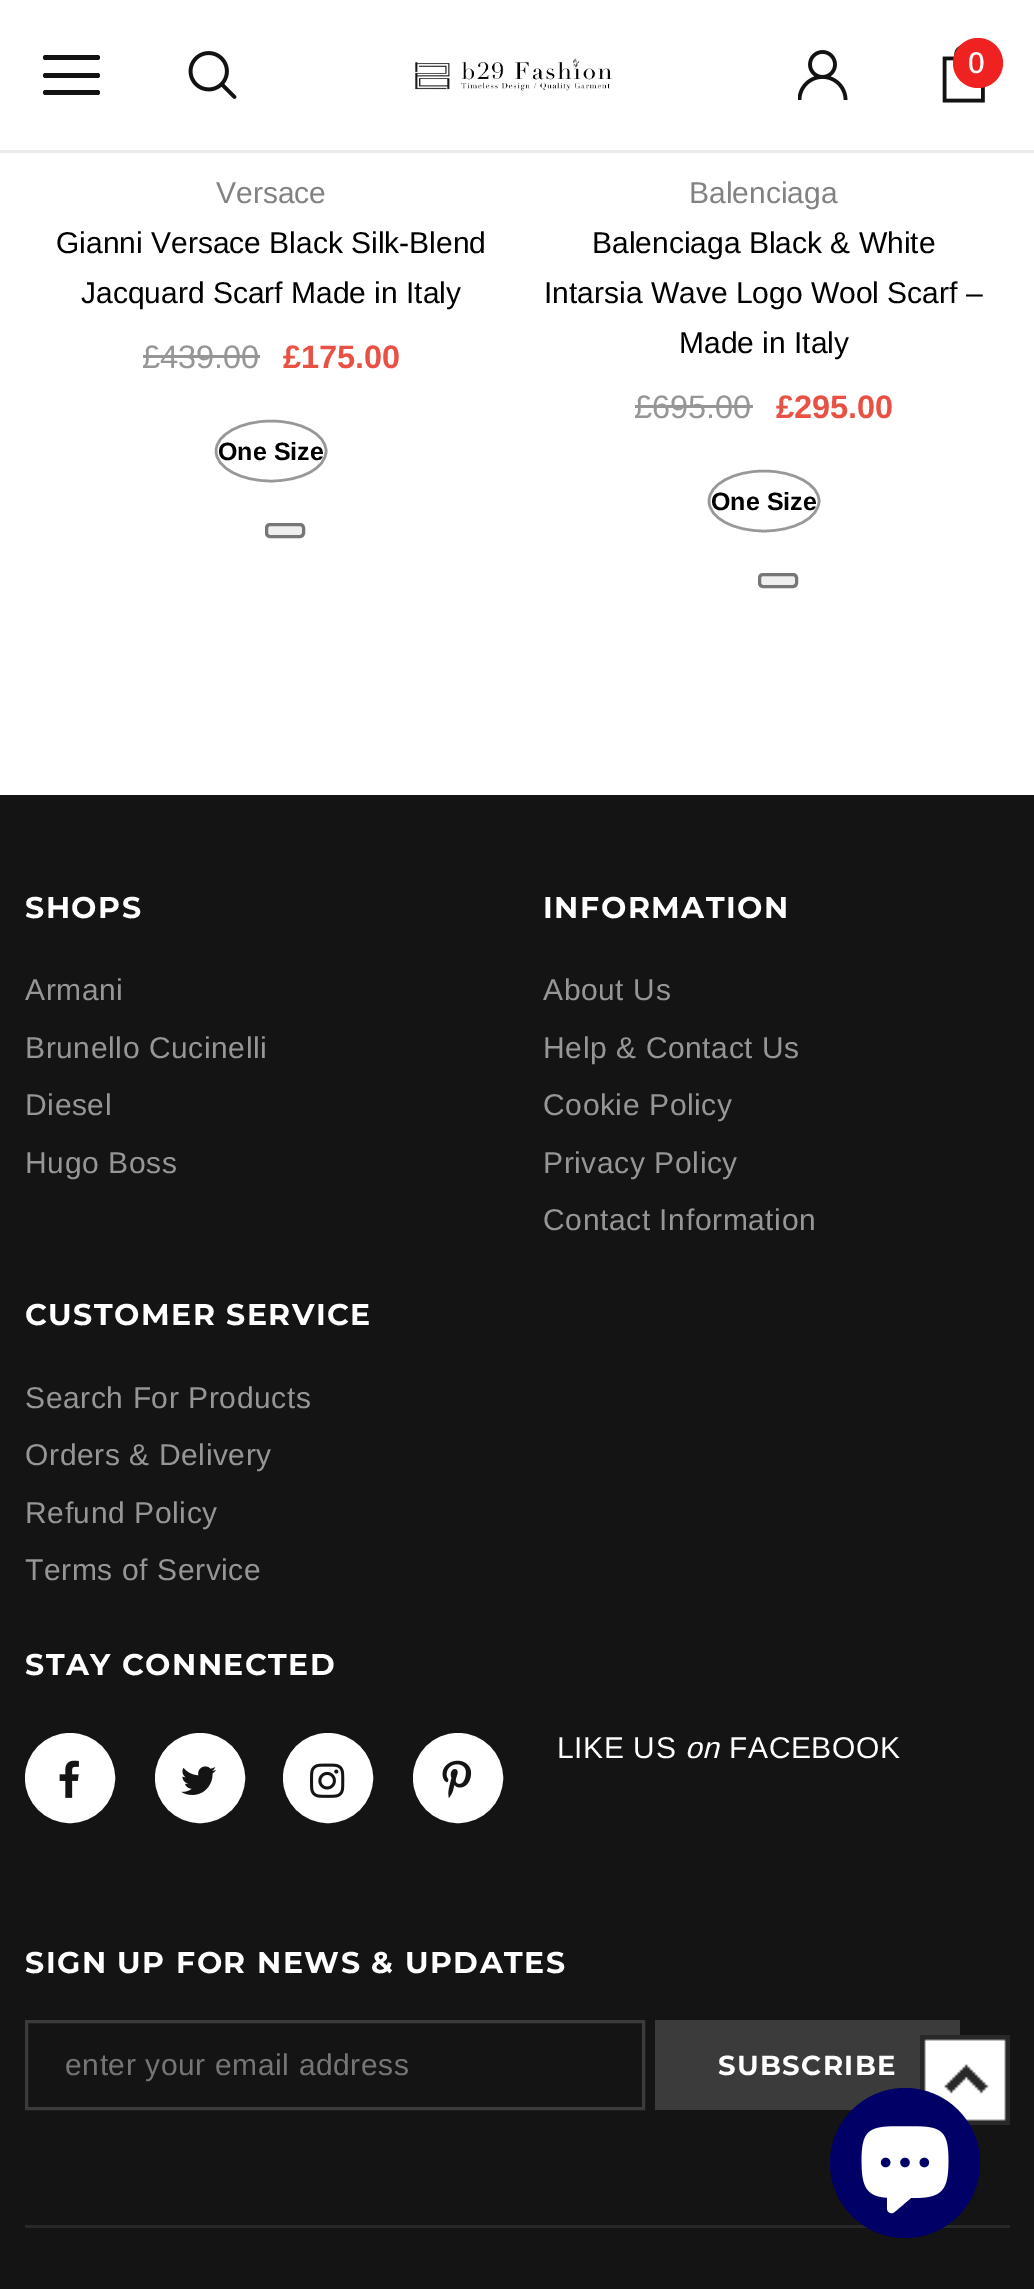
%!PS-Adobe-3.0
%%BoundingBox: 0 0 1034 2289
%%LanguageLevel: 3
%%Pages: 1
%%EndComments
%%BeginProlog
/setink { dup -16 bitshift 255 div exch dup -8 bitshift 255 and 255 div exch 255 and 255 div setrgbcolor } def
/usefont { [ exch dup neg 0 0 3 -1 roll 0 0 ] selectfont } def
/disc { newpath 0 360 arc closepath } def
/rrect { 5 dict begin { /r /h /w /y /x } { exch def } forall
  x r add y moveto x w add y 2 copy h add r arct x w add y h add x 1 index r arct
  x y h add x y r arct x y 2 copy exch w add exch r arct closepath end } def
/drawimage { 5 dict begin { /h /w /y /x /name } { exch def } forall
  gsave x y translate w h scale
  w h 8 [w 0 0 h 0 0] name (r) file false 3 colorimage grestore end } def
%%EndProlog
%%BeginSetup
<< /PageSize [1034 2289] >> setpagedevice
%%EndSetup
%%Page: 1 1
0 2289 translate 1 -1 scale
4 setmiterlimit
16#FFFFFF setink
0 0 1034 2289 rectfill
16#EBEBEB setink
0 150 1034 3 rectfill
16#121212 setink
43 73 57 5 2.5 rrect fill
43 55 57 5 2.5 rrect fill
43 90 57 5 2.5 rrect fill
(img1.raw) 188 51 49 48 drawimage
(img2.raw) 415 58 197 33 drawimage
(img3.raw) 798 50 50 50 drawimage
(img4.raw) 942 45 43 58 drawimage
16#F02121 setink
978 63 25 disc fill
/Arimo-Medium 30 usefont
16#FFFFFF setink
968 73 moveto 0.6 0 (0) ashow
/Arimo-Regular 30 usefont
16#828282 setink
216 203 moveto (Versace) show
16#000000 setink
56 253 moveto (Gianni Versace Black Silk-Blend) show
81 303 moveto (Jacquard Scarf Made in Italy) show
/Arimo-Regular 32.5 usefont
16#969696 setink
142 368 moveto (£439.00) show
143 355 117 3 rectfill
/Arimo-Bold 32.5 usefont
16#E95144 setink
283 368 moveto (£175.00) show
16#989898 setink
2.5 setlinewidth
271 421 moveto 301.5 421 326 434.5 326 451 curveto 326 468 301.5 481 271 481 curveto 241 481 216 468 216 451 curveto 216 434.5 241 421 271 421 curveto closepath stroke
/Arimo-Bold 25 usefont
16#000000 setink
218 460 moveto (One Size) show
16#EFEFEF setink
266.5 524.5 37 12 3.5 rrect gsave fill grestore
16#767676 setink
3 setlinewidth
stroke
/Arimo-Regular 30 usefont
16#828282 setink
689 203 moveto (Balenciaga) show
16#000000 setink
[
    [(Balenciaga Black & White) 592 253]
    [(Intarsia Wave Logo Wool Scarf –) 544 303]
    [(Made in Italy) 679 353]
] { aload pop moveto show } forall
/Arimo-Regular 32.5 usefont
16#969696 setink
634 418 moveto (£695.00) show
635 405 118 3 rectfill
/Arimo-Bold 32.5 usefont
16#E95144 setink
776 418 moveto (£295.00) show
16#989898 setink
2.5 setlinewidth
764 471 moveto 794 471 819 484.5 819 501 curveto 819 518 794 531 764 531 curveto 733.5 531 709 518 709 501 curveto 709 484.5 733.5 471 764 471 curveto closepath stroke
/Arimo-Bold 25 usefont
16#000000 setink
711 510 moveto (One Size) show
16#EFEFEF setink
759.5 574.5 37 12 3.5 rrect gsave fill grestore
16#767676 setink
3 setlinewidth
stroke
16#141414 setink
0 795 1034 1494 rectfill
/Montserrat-Bold 30 usefont
16#FFFFFF setink
25 918 moveto 1.5 0 (SHOPS) ashow
/Arimo-Regular 30 usefont
16#969696 setink
25 1000 moveto 0.6 0 (Armani) ashow
25 1058 moveto 0.6 0 (Brunello Cucinelli) ashow
25 1115 moveto 0.6 0 (Diesel) ashow
25 1173 moveto 0.6 0 (Hugo Boss) ashow
/Montserrat-Bold 30 usefont
16#FFFFFF setink
543 918 moveto 1.5 0 (INFORMATION) ashow
/Arimo-Regular 30 usefont
16#969696 setink
543 1000 moveto 0.6 0 (About Us) ashow
543 1058 moveto 0.6 0 (Help & Contact Us) ashow
543 1115 moveto 0.6 0 (Cookie Policy) ashow
543 1173 moveto 0.6 0 (Privacy Policy) ashow
543 1230 moveto 0.6 0 (Contact Information) ashow
/Montserrat-Bold 30 usefont
16#FFFFFF setink
25 1325 moveto 1.5 0 (CUSTOMER SERVICE) ashow
/Arimo-Regular 30 usefont
16#969696 setink
25 1408 moveto 0.6 0 (Search For Products) ashow
25 1465 moveto 0.6 0 (Orders & Delivery) ashow
25 1523 moveto 0.6 0 (Refund Policy) ashow
25 1580 moveto 0.6 0 (Terms of Service) ashow
/Montserrat-Bold 30 usefont
16#FFFFFF setink
25 1675 moveto 1.5 0 (STAY CONNECTED) ashow
70 1778 43.5 disc gsave fill grestore
stroke
(img5.raw) 59 1760 20 38 drawimage
200 1778 43.5 disc gsave fill grestore
stroke
(img6.raw) 181 1766 35 29 drawimage
328 1778 43.5 disc gsave fill grestore
stroke
(img7.raw) 310 1763 35 35 drawimage
458 1778 43.5 disc gsave fill grestore
stroke
(img8.raw) 442 1760 30 38 drawimage
/Arimo-Regular 30 usefont
557 1758 moveto 0.6 0 (LIKE US) ashow
/Arimo-Italic 30 usefont
685 1758 moveto 0.6 0 (on) ashow
/Arimo-Regular 30 usefont
729 1758 moveto 0.6 0 (FACEBOOK) ashow
/Montserrat-Bold 30 usefont
25 1973 moveto 1.5 0 (SIGN UP FOR NEWS & UPDATES) ashow
16#3B3B3B setink
26.5 2021.5 617 87 rectstroke
/Arimo-Regular 30 usefont
16#757575 setink
65 2075 moveto 0.6 0 (enter your email address) ashow
16#3B3B3B setink
655 2020 305 90 rectfill
/Montserrat-Bold 27.5 usefont
16#FFFFFF setink
718 2075 moveto 1.4 0 (SUBSCRIBE) ashow
16#282828 setink
25 2225 985 3 rectfill
16#FFFFFF setink
924 2039 82 82 rectfill
(img9.raw) 920 2035 90 90 drawimage
16#000066 setink
905 2163 75 disc fill
(img10.raw) 861 2126 88 88 drawimage
showpage
%%EOF
